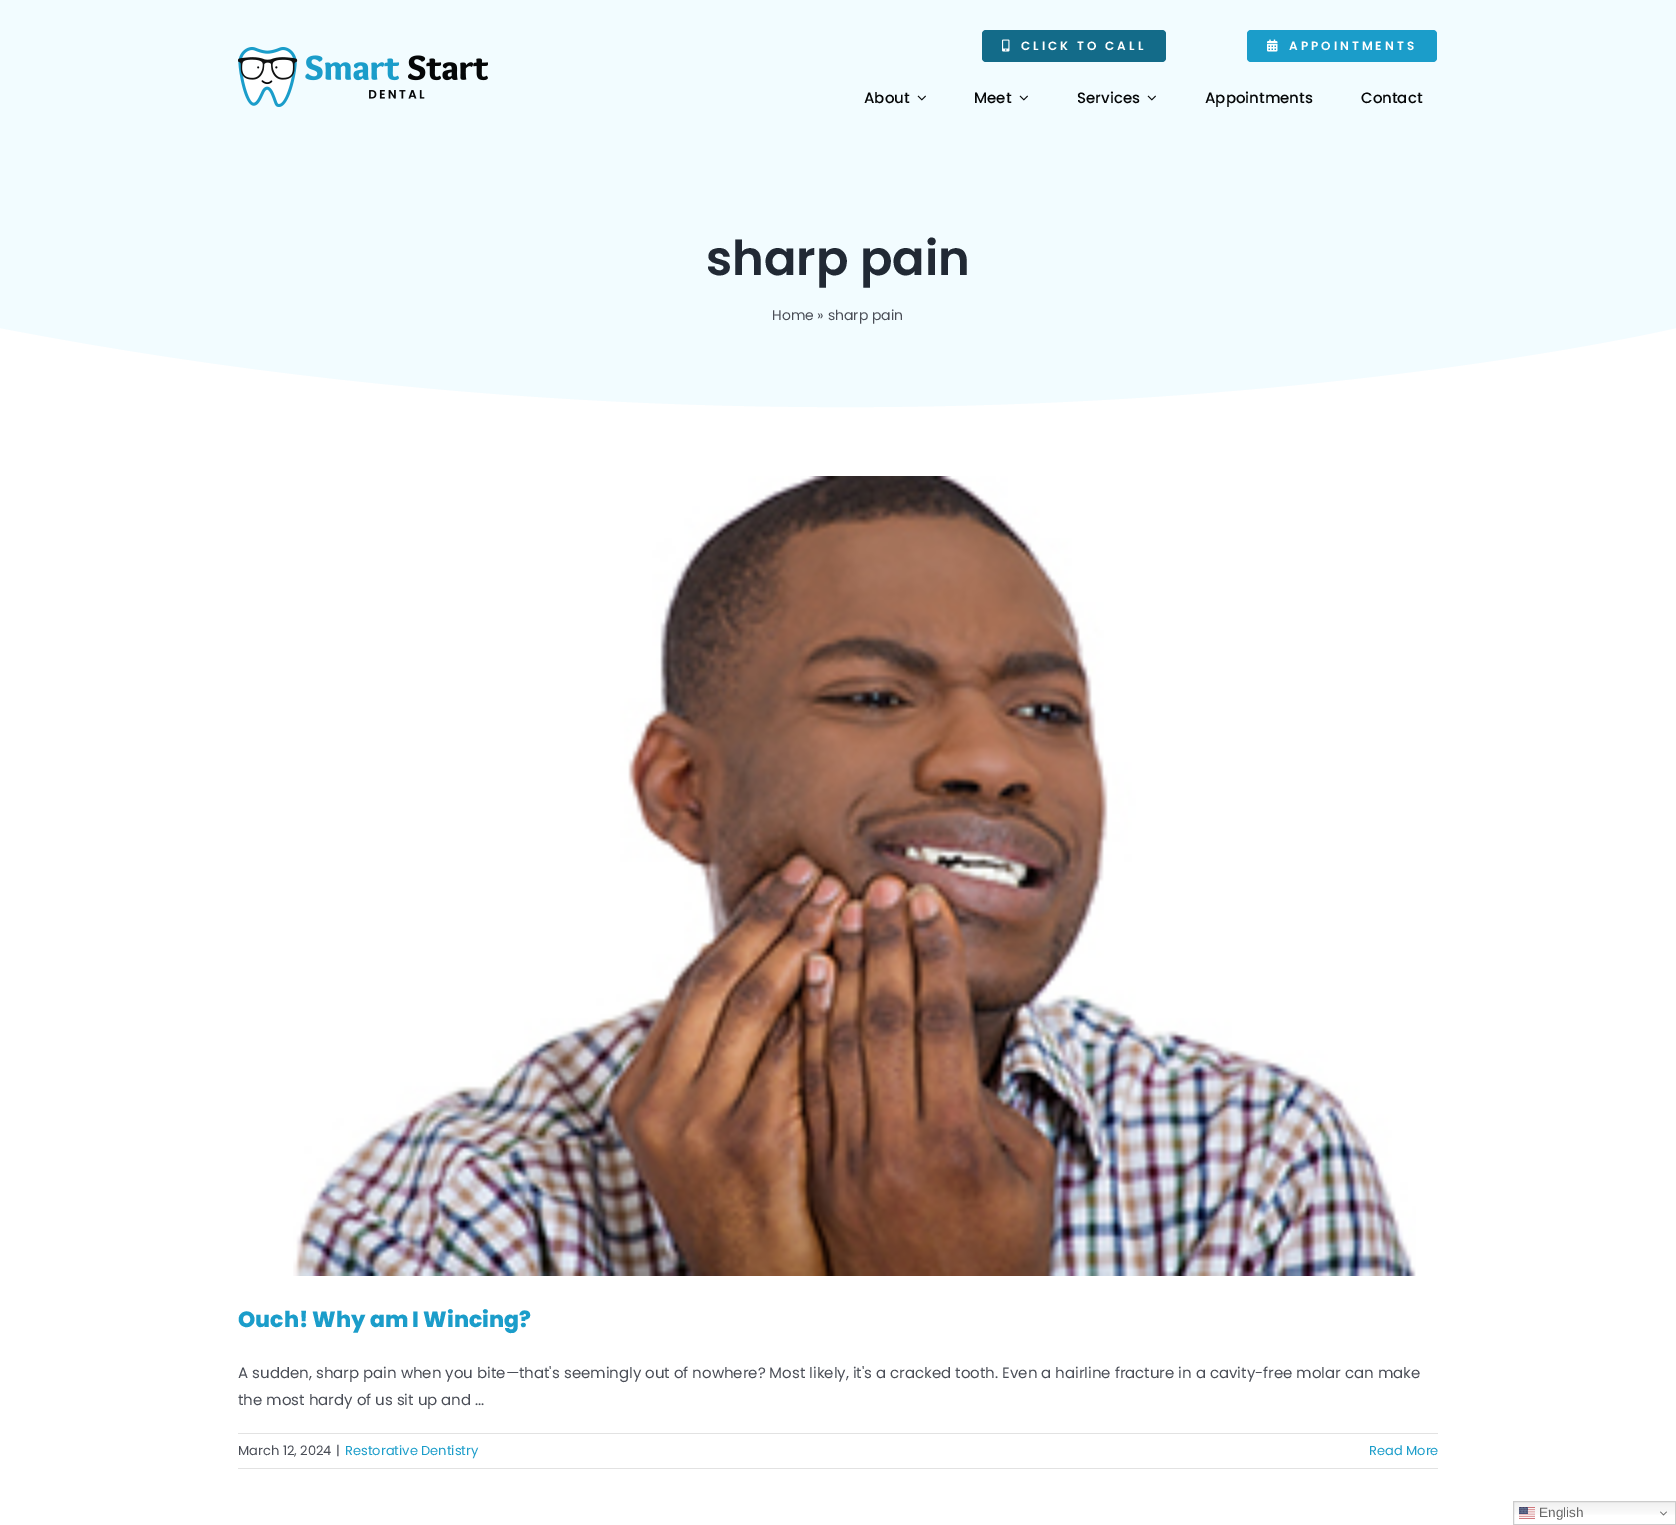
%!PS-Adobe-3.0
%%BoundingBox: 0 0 1676 1525
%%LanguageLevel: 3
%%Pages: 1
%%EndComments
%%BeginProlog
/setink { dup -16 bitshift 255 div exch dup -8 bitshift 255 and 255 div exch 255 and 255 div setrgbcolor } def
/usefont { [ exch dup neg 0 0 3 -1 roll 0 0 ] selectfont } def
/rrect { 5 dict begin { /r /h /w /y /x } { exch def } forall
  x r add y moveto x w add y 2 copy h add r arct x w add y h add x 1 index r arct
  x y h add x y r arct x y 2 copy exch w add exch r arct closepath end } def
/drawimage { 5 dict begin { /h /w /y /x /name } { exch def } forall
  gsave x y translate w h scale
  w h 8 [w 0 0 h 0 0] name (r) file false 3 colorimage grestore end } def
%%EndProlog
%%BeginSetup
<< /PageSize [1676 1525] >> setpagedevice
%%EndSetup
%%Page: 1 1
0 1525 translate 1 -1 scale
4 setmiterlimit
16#FFFFFF setink
0 0 1676 1525 rectfill
gsave 0 0 moveto 1676 0 lineto 1676 328 lineto 0 328 lineto closepath clip newpath 838 0 translate 900 900 scale
<< /ShadingType 3 /ColorSpace /DeviceRGB /Coords [0 0 0 0 0 1] /Extend [true true] /Function << /FunctionType 2 /Domain [0 1] /C0 [0.949 0.988 1] /C1 [0.949 0.988 1] /N 1 >> >> shfill grestore
(img1.raw) 238 47 250 60 drawimage
16#136B89 setink
982 30 184 32 4 rrect fill
(img2.raw) 1002 39 8 13 drawimage
/Poppins-SemiBold 12 usefont
16#FFFFFF setink
1021 50 moveto 3 0 (CLICK TO CALL) ashow
16#1B9DCA setink
1247 30 190 32 4 rrect fill
(img3.raw) 1267 39 11 13 drawimage
16#FFFFFF setink
1289 50 moveto 3 0 (APPOINTMENTS) ashow
/Poppins-Medium 15 usefont
16#050708 setink
864 103 moveto (About) show
(img4.raw) 917 95 9 6 drawimage
974 103 moveto (Meet) show
(img4.raw) 1019 95 9 6 drawimage
1077 103 moveto (Services) show
(img4.raw) 1147 95 9 6 drawimage
1205 103 moveto (Appointments) show
1361 103 moveto (Contact) show
/Poppins-SemiBold 48 usefont
16#212934 setink
706 275 moveto (sharp pain) show
/Poppins-Regular 14 usefont
16#4A4E57 setink
772 320 moveto (Home » sharp pain) show
16#F2FCFF setink
0 328 moveto 922 506 1676 328 1676 328 curveto closepath fill
(img5.raw) 293 476 1123 800 drawimage
/Poppins-ExtraBold 22 usefont
16#1B9DCA setink
238 1327 moveto (Ouch! Why am I Wincing?) show
/Poppins-Regular 15 usefont
16#4A4E57 setink
238 1378 moveto (A sudden, sharp pain when you bite—that's seemingly out of nowhere? Most likely, it's a cracked tooth. Even a hairline fracture in a cavity-free molar can make) show
238 1405 moveto (the most hardy of us sit up and ...) show
16#E2E2E2 setink
238 1433 1200 1 rectfill
238 1468 1200 1 rectfill
/Poppins-Regular 13 usefont
16#4A4E57 setink
238 1455 moveto (March 12, 2024) show
336 1455 moveto (|) show
16#1B9DCA setink
345 1455 moveto (Restorative Dentistry) show
1369 1455 moveto (Read More) show
gsave 1514 1502 moveto 1675 1502 lineto 1675 1515 lineto 1514 1515 lineto closepath clip newpath
<< /ShadingType 2 /ColorSpace /DeviceRGB /Coords [1595 1501 1595 1525] /Extend [true true] /Function << /FunctionType 3 /Domain [0 1] /Functions [<< /FunctionType 2 /Domain [0 1] /C0 [0.937 0.937 0.937] /C1 [1 1 1] /N 1 >> << /FunctionType 2 /Domain [0 1] /C0 [1 1 1] /C1 [1 1 1] /N 1 >>] /Bounds [0.7] /Encode [0 1 0 1] >> >> shfill grestore
16#CCCCCC setink
1513.5 1501.5 162 23 rectstroke
(img6.raw) 1519 1507 16 12 drawimage
/LiberationSans-Regular 13.5 usefont
16#666666 setink
1539 1517 moveto (English) show
(img7.raw) 1660 1511 7 5 drawimage
showpage
%%EOF
